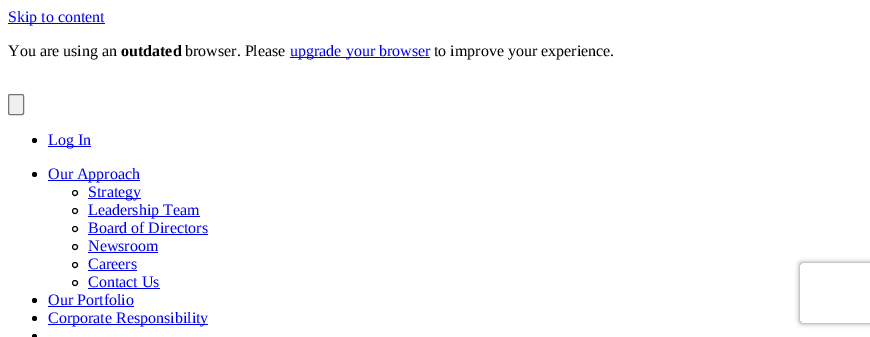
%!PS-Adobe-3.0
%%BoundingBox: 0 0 870 337
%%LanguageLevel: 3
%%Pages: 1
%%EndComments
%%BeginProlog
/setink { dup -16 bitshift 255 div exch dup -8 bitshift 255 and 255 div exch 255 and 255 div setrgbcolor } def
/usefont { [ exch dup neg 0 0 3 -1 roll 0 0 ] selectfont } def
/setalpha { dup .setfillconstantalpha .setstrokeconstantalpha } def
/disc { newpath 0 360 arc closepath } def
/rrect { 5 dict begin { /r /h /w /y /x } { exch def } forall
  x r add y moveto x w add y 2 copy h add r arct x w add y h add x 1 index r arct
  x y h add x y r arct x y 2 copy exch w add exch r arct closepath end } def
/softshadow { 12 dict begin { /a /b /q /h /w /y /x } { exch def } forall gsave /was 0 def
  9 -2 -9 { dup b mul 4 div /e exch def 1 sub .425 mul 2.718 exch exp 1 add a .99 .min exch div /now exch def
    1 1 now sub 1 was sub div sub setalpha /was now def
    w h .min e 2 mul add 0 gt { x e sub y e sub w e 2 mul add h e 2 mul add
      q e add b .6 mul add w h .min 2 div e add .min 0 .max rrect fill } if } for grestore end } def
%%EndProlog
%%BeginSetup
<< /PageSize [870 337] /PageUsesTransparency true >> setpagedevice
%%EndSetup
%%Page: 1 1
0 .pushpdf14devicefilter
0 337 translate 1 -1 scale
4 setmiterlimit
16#FFFFFF setink
0 0 870 337 rectfill
16#0000EE setink
8 23 97 1 rectfill
/LiberationSerif-Regular 16 usefont
8 22 moveto (Skip to content) show
16#000000 setink
8 56 moveto (You are using an) show
/LiberationSerif-Bold 16 usefont
121 56 moveto (outdated) show
/LiberationSerif-Regular 16 usefont
185 56 moveto (browser. Please) show
16#0000EE setink
290 57 140 1 rectfill
290 56 moveto (upgrade your browser) show
16#000000 setink
434 56 moveto (to improve your experience.) show
16#EFEFEF setink
8.5 94.5 15 20 1.5 rrect gsave fill grestore
16#767676 setink
stroke
16#000000 setink
34.5 140.5 2.5 disc fill
16#0000EE setink
48 146 43 1 rectfill
48 145 moveto (Log In) show
16#000000 setink
34.5 174.5 2.5 disc fill
16#0000EE setink
48 180 92 1 rectfill
48 179 moveto (Our Approach) show
16#000000 setink
75 193 2.5 disc stroke
16#0000EE setink
88 198 53 1 rectfill
88 197 moveto (Strategy) show
16#000000 setink
75 211 2.5 disc stroke
16#0000EE setink
88 216 112 1 rectfill
88 215 moveto (Leadership Team) show
16#000000 setink
75 229 2.5 disc stroke
16#0000EE setink
88 233 moveto (Board of Directors) show
88 234 120 1 rectfill
16#000000 setink
75 247 2.5 disc stroke
16#0000EE setink
88 251 moveto (Newsroom) show
88 252 70 1 rectfill
16#000000 setink
75 265 2.5 disc stroke
16#0000EE setink
88 269 moveto (Careers) show
88 270 49 1 rectfill
16#000000 setink
75 283 2.5 disc stroke
16#0000EE setink
88 287 moveto (Contact Us) show
88 288 72 1 rectfill
16#000000 setink
34.5 300.5 2.5 disc fill
16#0000EE setink
48 305 moveto (Our Portfolio) show
48 306 86 1 rectfill
16#000000 setink
34.5 318.5 2.5 disc fill
16#0000EE setink
48 324 160 1 rectfill
48 323 moveto (Corporate Responsibility) show
16#000000 setink
34.5 336.5 2.5 disc fill
gsave
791 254 moveto 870 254 lineto 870 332 lineto 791 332 lineto closepath 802 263 moveto 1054 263 lineto 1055 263 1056 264 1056 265 curveto 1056 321 lineto 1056 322 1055 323 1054 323 curveto 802 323 lineto 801 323 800 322 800 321 curveto 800 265 lineto 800 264 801 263 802 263 curveto closepath eoclip newpath
16#808080 setink
800 263 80 60 2 2.5 1 softshadow
grestore
.poppdf14devicefilter showpage
%%EOF
